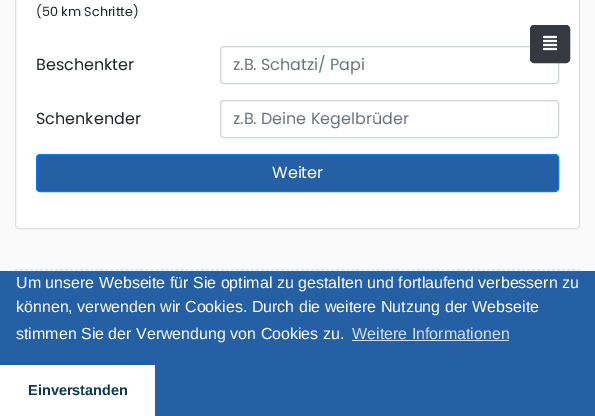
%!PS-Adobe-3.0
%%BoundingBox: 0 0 595 416
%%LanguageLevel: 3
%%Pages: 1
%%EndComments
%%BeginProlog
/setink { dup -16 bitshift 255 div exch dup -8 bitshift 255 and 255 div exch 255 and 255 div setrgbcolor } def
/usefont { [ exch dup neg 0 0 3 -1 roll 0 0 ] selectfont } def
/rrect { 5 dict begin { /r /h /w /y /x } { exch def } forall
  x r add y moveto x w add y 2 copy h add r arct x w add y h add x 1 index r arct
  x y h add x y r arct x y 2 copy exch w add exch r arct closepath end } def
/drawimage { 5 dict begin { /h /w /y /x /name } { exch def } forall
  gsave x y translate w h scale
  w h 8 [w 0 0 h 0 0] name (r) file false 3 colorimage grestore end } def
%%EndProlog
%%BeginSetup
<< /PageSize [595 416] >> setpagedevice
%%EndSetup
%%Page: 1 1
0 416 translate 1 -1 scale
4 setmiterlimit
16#FAFAFA setink
0 0 595 416 rectfill
16#FFFFFF setink
15.5 -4.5 564 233 3.5 rrect gsave fill grestore
16#DFDFDF setink
stroke
/Poppins-Regular 12.75 usefont
16#212529 setink
36 16 moveto (\(50 km Schritte\)) show
/Poppins-Regular 16 usefont
36 70 moveto (Beschenkter) show
16#CED4DA setink
220.5 46.5 338 37 3.5 rrect stroke
16#6C757D setink
233 70 moveto (z.B. Schatzi/ Papi) show
16#212529 setink
36 124 moveto (Schenkender) show
16#CED4DA setink
220.5 100.5 338 37 3.5 rrect stroke
16#6C757D setink
233 124 moveto (z.B. Deine Kegelbrüder) show
16#2660A4 setink
36.5 154.5 522 37 3.5 rrect gsave fill grestore
16#007BFF setink
stroke
16#FFFFFF setink
272 178 moveto (Weiter) show
16#343A40 setink
530.5 25.5 39 37 3.5 rrect gsave fill grestore
stroke
(img1.raw) 543 35 14 16 drawimage
16#DDDDDD setink
[3 2.02] 0 setdash
15 269.5 moveto 580 269.5 lineto stroke
16#2660A4 setink
0 271 595 145 rectfill
/LiberationSans-Regular 16 usefont
16#FFFFFF setink
[
    [(Um unsere Webseite für Sie optimal zu gestalten und fortlaufend verbessern zu) 16 288]
    [(können, verwenden wir Cookies. Durch die weitere Nutzung der Webseite) 16 312]
    [(stimmen Sie der Verwendung von Cookies zu.) 16 339]
] { aload pop moveto show } forall
16#D4DFED setink
352 339 moveto (Weitere Informationen) show
352 340 157 1 rectfill
16#FFFFFF setink
0 365 155 51 rectfill
/LiberationSans-Bold 14.5 usefont
16#0B3954 setink
28 395 moveto (Einverstanden) show
showpage
%%EOF
